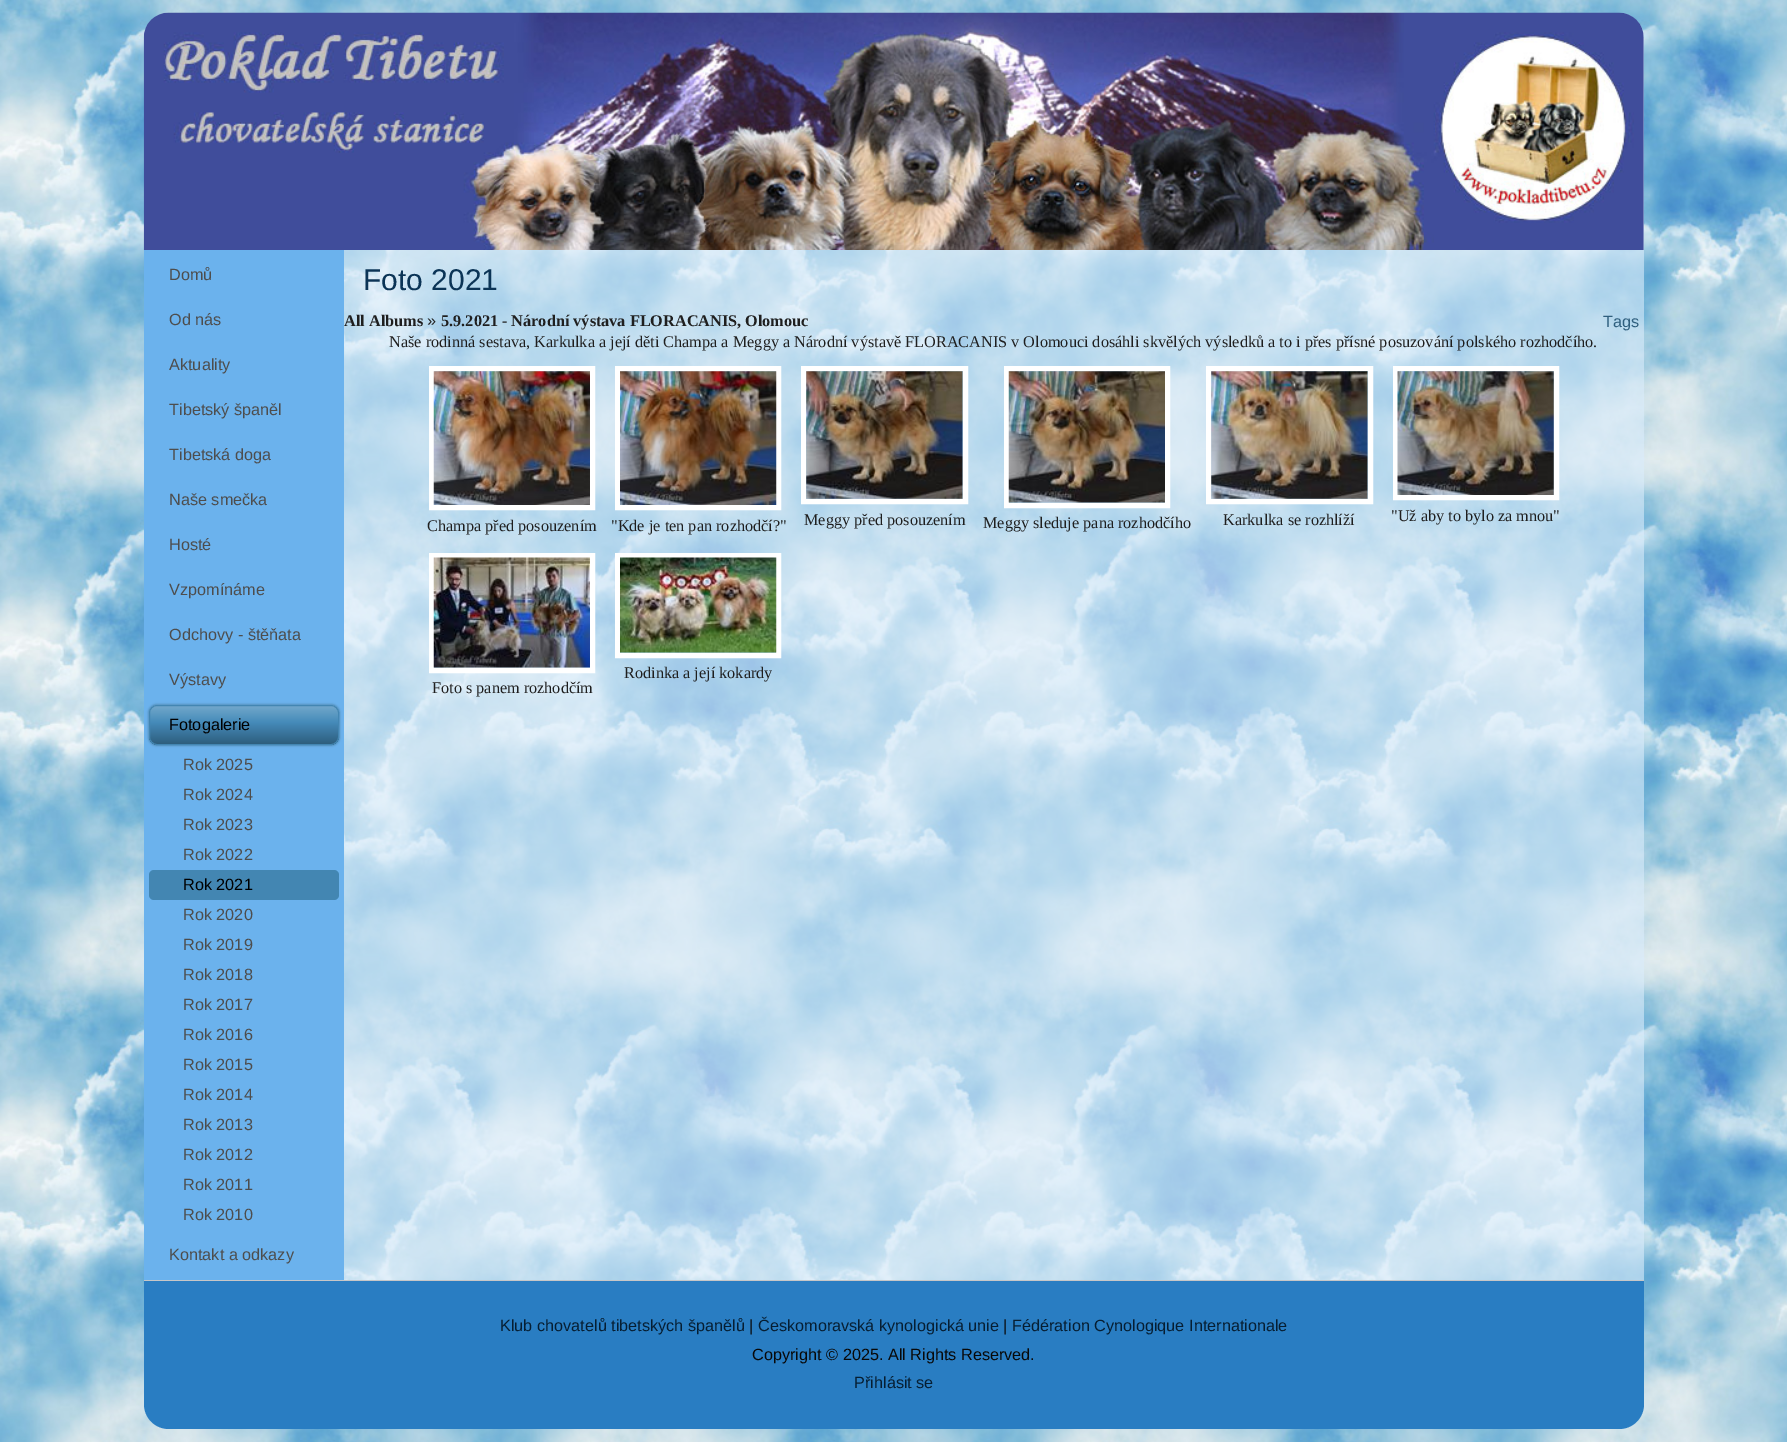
%!PS-Adobe-3.0
%%BoundingBox: 0 0 1787 1442
%%LanguageLevel: 3
%%Pages: 1
%%EndComments
%%BeginProlog
/setink { dup -16 bitshift 255 div exch dup -8 bitshift 255 and 255 div exch 255 and 255 div setrgbcolor } def
/usefont { [ exch dup neg 0 0 3 -1 roll 0 0 ] selectfont } def
/setalpha { dup .setfillconstantalpha .setstrokeconstantalpha } def
/rrect { 5 dict begin { /r /h /w /y /x } { exch def } forall
  x r add y moveto x w add y 2 copy h add r arct x w add y h add x 1 index r arct
  x y h add x y r arct x y 2 copy exch w add exch r arct closepath end } def
/softshadow { 12 dict begin { /a /b /q /h /w /y /x } { exch def } forall gsave /was 0 def
  9 -2 -9 { dup b mul 4 div /e exch def 1 sub .425 mul 2.718 exch exp 1 add a .99 .min exch div /now exch def
    1 1 now sub 1 was sub div sub setalpha /was now def
    w h .min e 2 mul add 0 gt { x e sub y e sub w e 2 mul add h e 2 mul add
      q e add b .6 mul add w h .min 2 div e add .min 0 .max rrect fill } if } for grestore end } def
/drawimage { 5 dict begin { /h /w /y /x /name } { exch def } forall
  gsave x y translate w h scale
  w h 8 [w 0 0 h 0 0] name (r) file false 3 colorimage grestore end } def
%%EndProlog
%%BeginSetup
<< /PageSize [1787 1442] /PageUsesTransparency true >> setpagedevice
%%EndSetup
%%Page: 1 1
0 .pushpdf14devicefilter
0 1442 translate 1 -1 scale
4 setmiterlimit
16#FFFFFF setink
0 0 1787 1442 rectfill
(img1.raw) 0 0 1787 1442 drawimage
0.6 setalpha
16#DAECFB setink
144 13 1500 1416 25 rrect fill
1 setalpha
(img2.raw) 143 12 1501 238 drawimage
16#6BB2ED setink
144 250 200 1030 rectfill
/LiberationSans-Regular 16.25 usefont
16#4D4D4D setink
[
    [(Domů) 169 280]
    [(Od nás) 169 325]
    [(Aktuality) 169 370]
    [(Tibetský španěl) 169 415]
    [(Tibetská doga) 169 460]
    [(Naše smečka) 169 505]
    [(Hosté) 169 550]
    [(Vzpomínáme) 169 595]
    [(Odchovy - štěňata) 169 640]
    [(Výstavy) 169 685]
] { aload pop moveto show } forall
16#000000 setink
148 704 192 42 9 1 0.2 softshadow
gsave 149.5 705.5 189 39 7.5 rrect clip newpath
<< /ShadingType 2 /ColorSpace /DeviceRGB /Coords [244 705 244 745] /Extend [true true] /Function << /FunctionType 3 /Domain [0 1] /Functions [<< /FunctionType 2 /Domain [0 1] /C0 [0.459 0.663 0.8] /C1 [0.271 0.545 0.729] /N 1 >> << /FunctionType 2 /Domain [0 1] /C0 [0.271 0.545 0.729] /C1 [0.176 0.361 0.482] /N 1 >>] /Bounds [0.43] /Encode [0 1 0 1] >> >> shfill grestore
16#4386B2 setink
149.5 705.5 189 39 7.5 rrect stroke
16#000000 setink
169 730 moveto (Fotogalerie) show
16#4D4D4D setink
[
    [(Rok 2025) 183 770]
    [(Rok 2024) 183 800]
    [(Rok 2023) 183 830]
    [(Rok 2022) 183 860]
] { aload pop moveto show } forall
16#4386B2 setink
149 870 190 30 5 rrect fill
16#000000 setink
183 890 moveto (Rok 2021) show
16#4D4D4D setink
[
    [(Rok 2020) 183 920]
    [(Rok 2019) 183 950]
    [(Rok 2018) 183 980]
    [(Rok 2017) 183 1010]
    [(Rok 2016) 183 1040]
    [(Rok 2015) 183 1070]
    [(Rok 2014) 183 1100]
    [(Rok 2013) 183 1130]
    [(Rok 2012) 183 1160]
    [(Rok 2011) 183 1190]
    [(Rok 2010) 183 1220]
    [(Kontakt a odkazy) 169 1260]
] { aload pop moveto show } forall
/LiberationSans-Regular 30 usefont
16#0B3456 setink
363 290 moveto (Foto 2021) show
/LiberationSerif-Bold 16.25 usefont
16#1F1F1F setink
344 326 moveto (All Albums) show
/LiberationSans-Regular 16.25 usefont
427 326 moveto (») show
/LiberationSerif-Bold 16.25 usefont
441 326 moveto (5.9.2021 - Národní výstava FLORACANIS, Olomouc) show
/LiberationSans-Regular 16.25 usefont
16#2F5F7E setink
1603 327 moveto (Tags) show
/LiberationSerif-Regular 16.25 usefont
16#1F1F1F setink
389 347 moveto (Naše rodinná sestava, Karkulka a její děti Champa a Meggy a Národní výstavě FLORACANIS v Olomouci dosáhli skvělých výsledků a to i přes přísné posuzování polského rozhodčího.) show
16#FFFFFF setink
5 setlinewidth
431.5 368.5 161 139 rectstroke
(img3.raw) 433 371 157 134 drawimage
16#1F1F1F setink
427 531 moveto (Champa před posouzením) show
16#FFFFFF setink
617.5 368.5 161 139 rectstroke
(img4.raw) 620 371 157 134 drawimage
16#1F1F1F setink
611 531 moveto ("Kde je ten pan rozhodčí?") show
16#FFFFFF setink
803.5 368.5 162 133 rectstroke
(img5.raw) 806 371 157 128 drawimage
16#1F1F1F setink
804 525 moveto (Meggy před posouzením) show
16#FFFFFF setink
1006.5 368.5 161 137 rectstroke
(img6.raw) 1008 371 157 132 drawimage
16#1F1F1F setink
983 528 moveto (Meggy sleduje pana rozhodčího) show
16#FFFFFF setink
1208.5 368.5 162 133 rectstroke
(img7.raw) 1211 371 157 128 drawimage
16#1F1F1F setink
1223 525 moveto (Karkulka se rozhlíží) show
16#FFFFFF setink
1395.5 368.5 161 129 rectstroke
(img8.raw) 1397 371 157 124 drawimage
16#1F1F1F setink
1391 521 moveto ("Už aby to bylo za mnou") show
16#FFFFFF setink
617.5 555.5 161 100 rectstroke
(img9.raw) 620 557 157 96 drawimage
16#1F1F1F setink
624 678 moveto (Rodinka a její kokardy) show
16#FFFFFF setink
431.5 555.5 161 115 rectstroke
(img10.raw) 433 557 157 111 drawimage
16#1F1F1F setink
432 693 moveto (Foto s panem rozhodčím) show
16#297DC2 setink
144 1280 moveto 1644 1280 lineto 1644 1404 lineto 1644 1418 1633 1429 1619 1429 curveto 169 1429 lineto 155 1429 144 1418 144 1404 curveto closepath fill
16#C7C7C7 setink
144 1280 1500 1 rectfill
/LiberationSans-Regular 16.25 usefont
16#061E32 setink
500 1331 moveto (Klub chovatelů tibetských španělů) show
16#080808 setink
749 1331 moveto (|) show
16#061E32 setink
758 1331 moveto (Českomoravská kynologická unie) show
16#080808 setink
1003 1331 moveto (|) show
16#061E32 setink
1012 1331 moveto (Fédération Cynologique Internationale) show
16#080808 setink
752 1360 moveto (Copyright © 2025. All Rights Reserved.) show
16#061E32 setink
854 1388 moveto (Přihlásit se) show
.poppdf14devicefilter showpage
%%EOF
